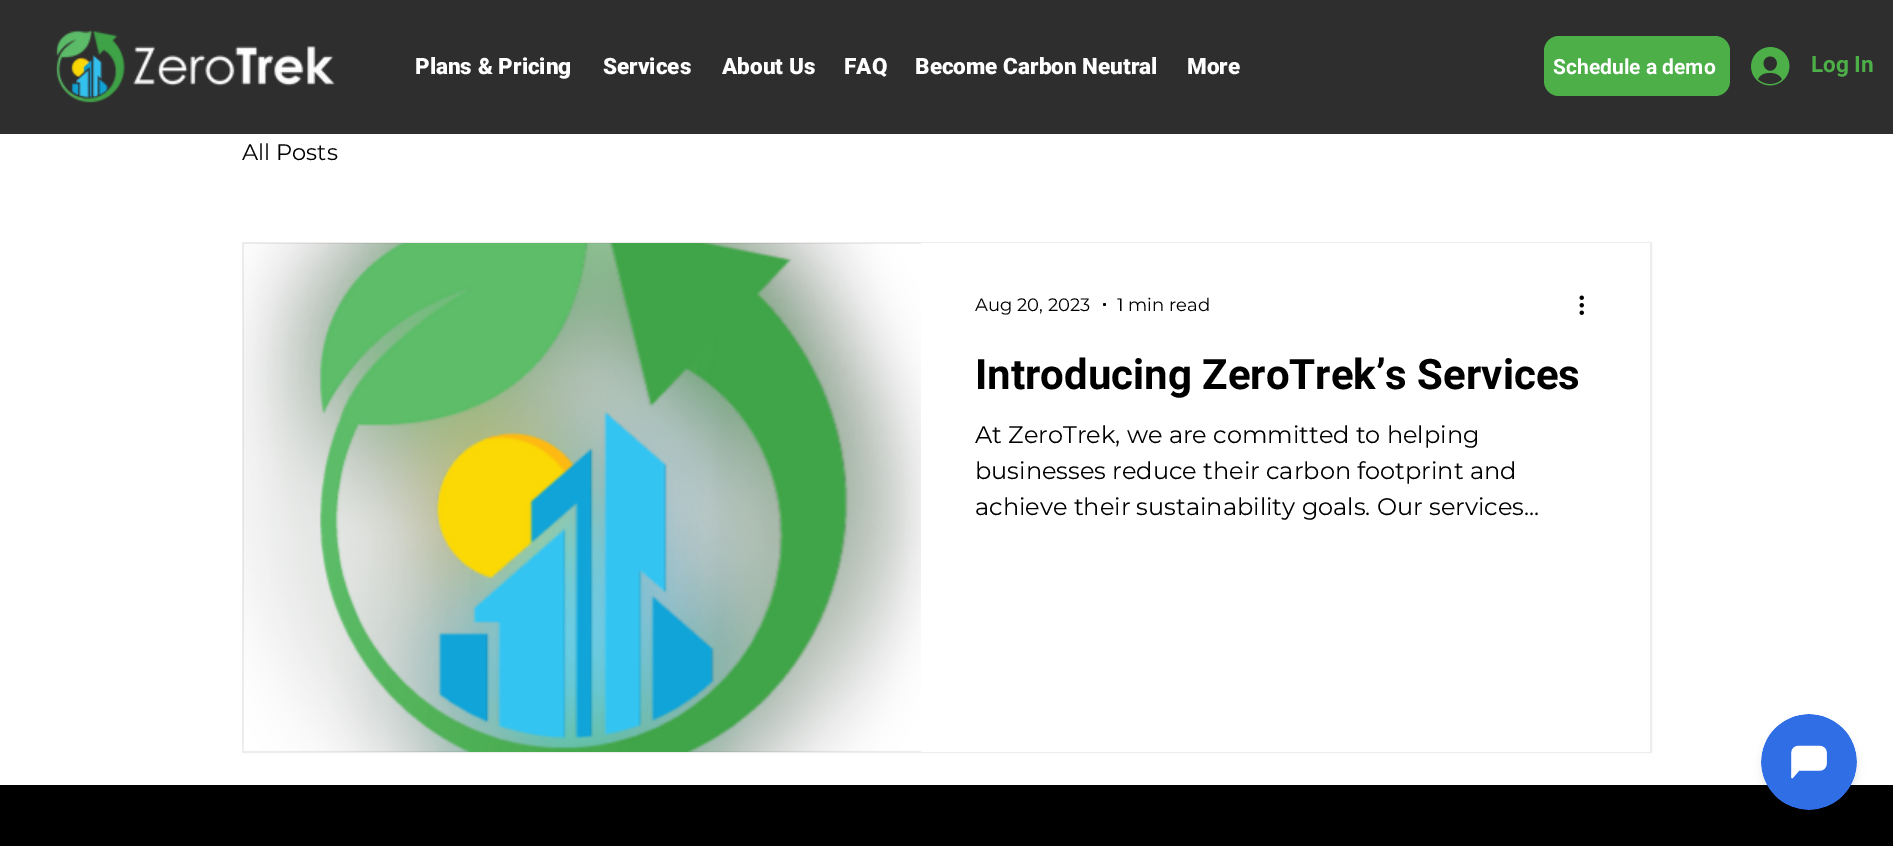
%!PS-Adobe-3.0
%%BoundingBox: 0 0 1893 846
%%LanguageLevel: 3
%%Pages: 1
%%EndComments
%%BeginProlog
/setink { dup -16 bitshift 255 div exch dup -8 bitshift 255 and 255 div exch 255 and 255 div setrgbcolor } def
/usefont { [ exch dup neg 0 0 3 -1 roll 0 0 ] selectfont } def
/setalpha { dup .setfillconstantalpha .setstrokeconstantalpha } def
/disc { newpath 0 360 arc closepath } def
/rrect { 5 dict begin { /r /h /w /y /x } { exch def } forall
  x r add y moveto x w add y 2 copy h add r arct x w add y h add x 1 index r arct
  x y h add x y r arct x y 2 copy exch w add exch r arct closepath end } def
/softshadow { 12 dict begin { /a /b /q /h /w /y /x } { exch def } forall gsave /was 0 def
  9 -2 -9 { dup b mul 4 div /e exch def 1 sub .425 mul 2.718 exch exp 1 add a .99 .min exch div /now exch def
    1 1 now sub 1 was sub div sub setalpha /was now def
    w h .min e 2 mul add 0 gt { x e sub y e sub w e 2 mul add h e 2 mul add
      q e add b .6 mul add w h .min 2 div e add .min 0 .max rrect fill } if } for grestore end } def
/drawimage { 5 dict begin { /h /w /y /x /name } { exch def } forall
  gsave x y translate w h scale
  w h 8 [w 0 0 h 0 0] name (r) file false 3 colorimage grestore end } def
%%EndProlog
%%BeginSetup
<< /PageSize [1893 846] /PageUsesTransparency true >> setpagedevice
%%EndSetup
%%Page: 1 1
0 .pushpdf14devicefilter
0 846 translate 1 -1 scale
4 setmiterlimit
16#FFFFFF setink
0 0 1893 846 rectfill
16#2F2E2E setink
0 0 1893 134 rectfill
(img1.raw) 55 30 280 73 drawimage
/Roboto-Black 22.5 usefont
16#FFFFFF setink
[
    [(Plans & Pricing) 415 74]
    [(Services) 603 74]
    [(About Us) 722 74]
    [(FAQ) 844 74]
    [(Become Carbon Neutral) 915 74]
    [(More) 1187 74]
] { aload pop moveto show } forall
16#4CAF48 setink
1544 36 186 60 15 rrect fill
/Roboto-Bold 21 usefont
16#FFFFFF setink
1553 74 moveto (Schedule a demo) show
(img2.raw) 1751 47 39 39 drawimage
/Roboto-Bold 22.5 usefont
16#4CAF48 setink
1811 72 moveto (Log In) show
/Montserrat-Regular 22.5 usefont
16#000000 setink
242 160 moveto (All Posts) show
16#EEECEC setink
2 setlinewidth
243 243 1408 509 rectstroke
(img3.raw) 243 243 678 509 drawimage
(img4.raw) 319 243 530 509 drawimage
16#FFFFFF setink
921 243 729 509 rectfill
/Montserrat-Regular 18 usefont
16#000000 setink
975 311 moveto (Aug 20, 2023) show
1104.5 304.5 1.5 disc fill
1117 311 moveto (1 min read) show
(img5.raw) 1579 295 5 20 drawimage
/Roboto-Bold 42 usefont
975 389 moveto (Introducing ZeroTrek’s Services) show
/Montserrat-Regular 24 usefont
[
    [(At ZeroTrek, we are committed to helping) 975 443]
    [(businesses reduce their carbon footprint and) 975 479]
    [(achieve their sustainability goals. Our services...) 975 515]
] { aload pop moveto show } forall
0 785 1893 61 rectfill
1764 720 90 90 45 3 0.1 softshadow
1763 722 93 93 46.5 4.5 0.1 softshadow
(img6.raw) 1761 714 96 96 drawimage
.poppdf14devicefilter showpage
%%EOF
